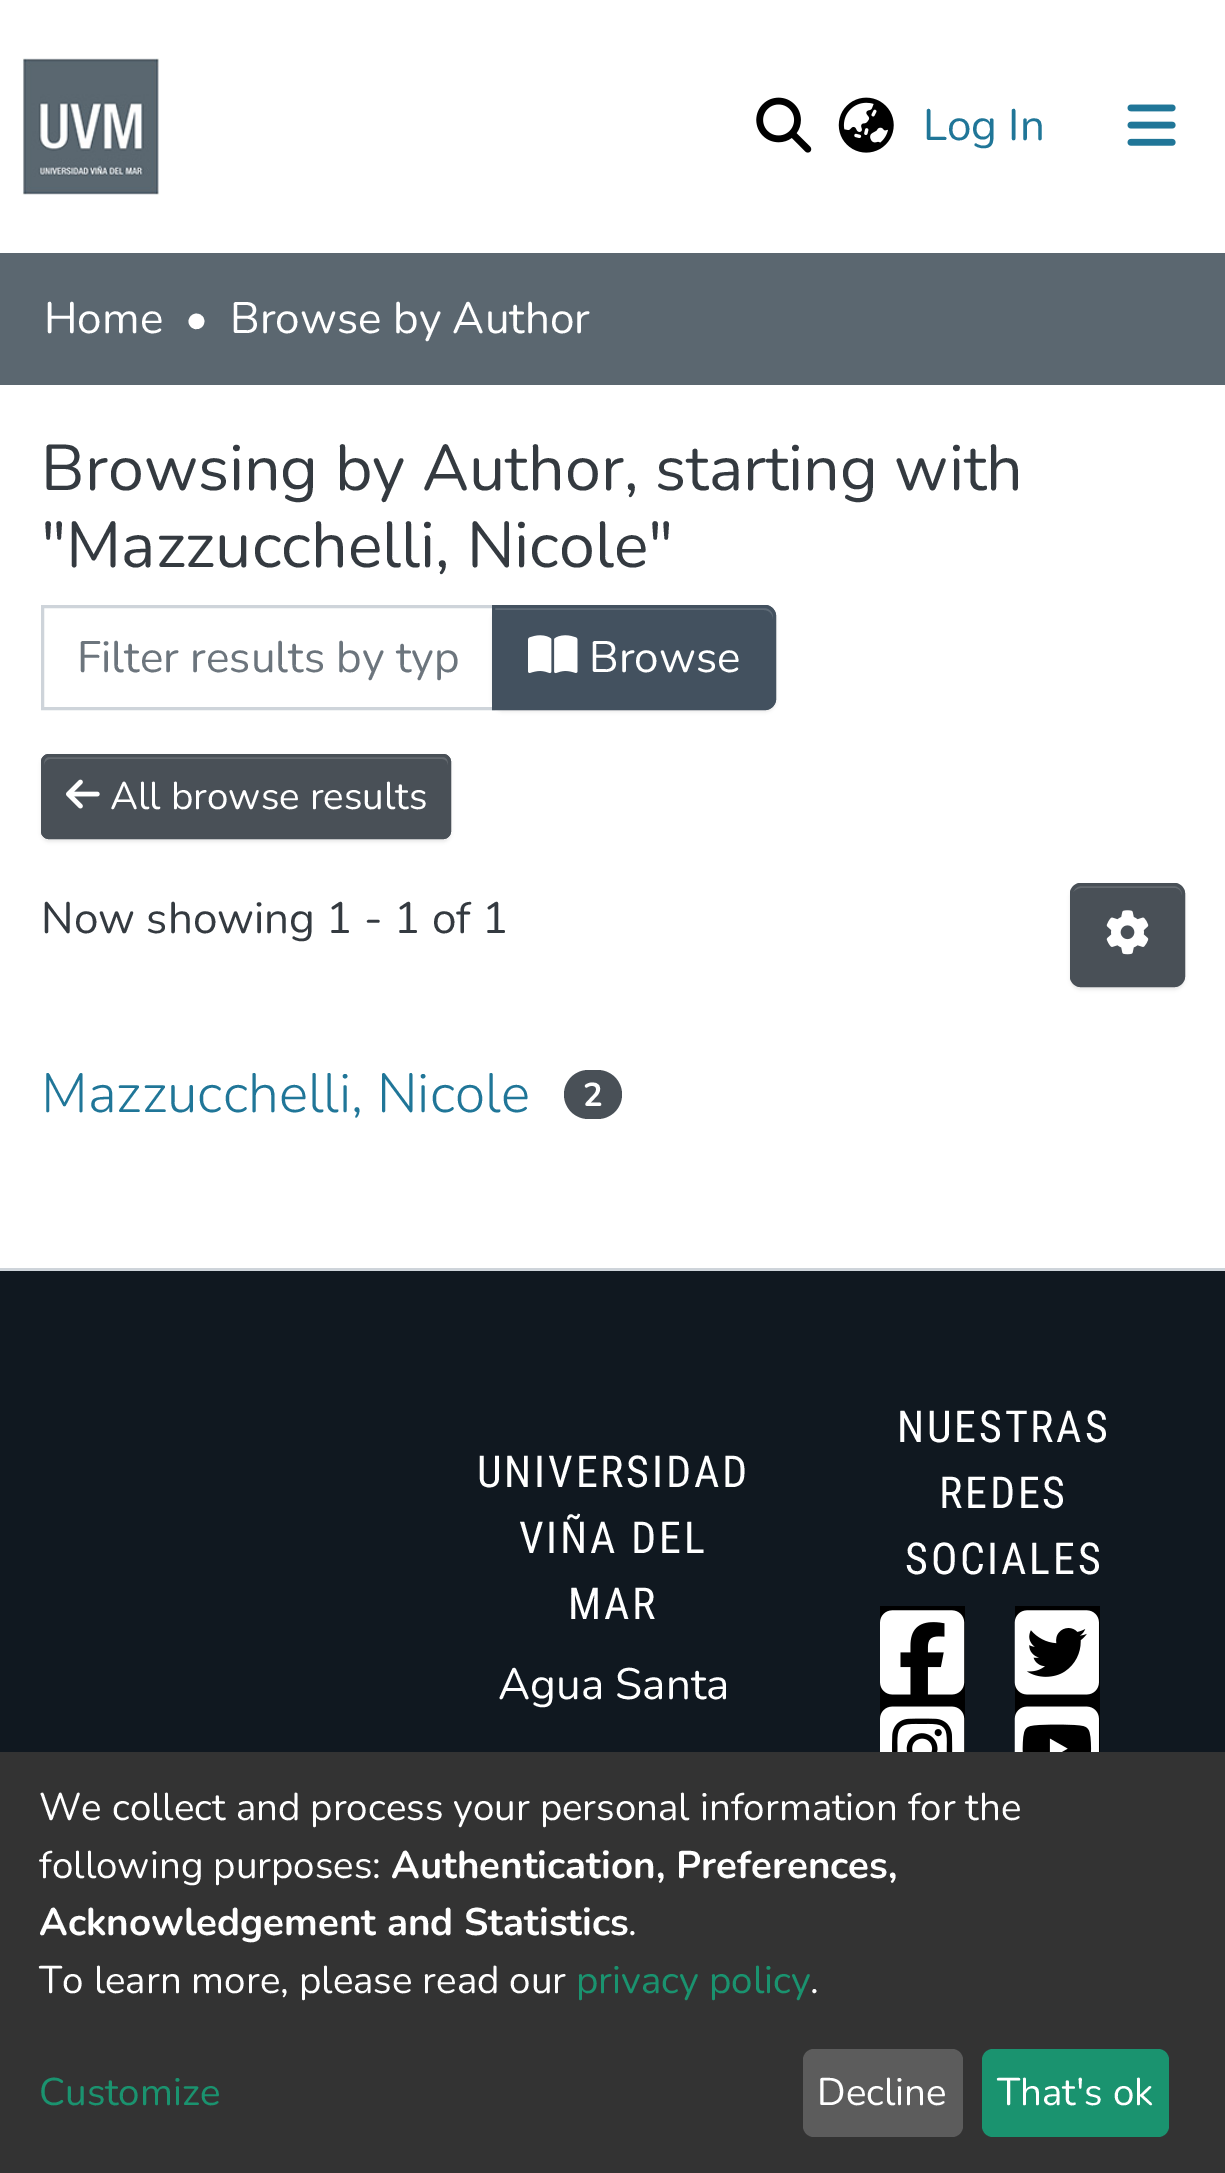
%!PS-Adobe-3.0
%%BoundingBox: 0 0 1225 2173
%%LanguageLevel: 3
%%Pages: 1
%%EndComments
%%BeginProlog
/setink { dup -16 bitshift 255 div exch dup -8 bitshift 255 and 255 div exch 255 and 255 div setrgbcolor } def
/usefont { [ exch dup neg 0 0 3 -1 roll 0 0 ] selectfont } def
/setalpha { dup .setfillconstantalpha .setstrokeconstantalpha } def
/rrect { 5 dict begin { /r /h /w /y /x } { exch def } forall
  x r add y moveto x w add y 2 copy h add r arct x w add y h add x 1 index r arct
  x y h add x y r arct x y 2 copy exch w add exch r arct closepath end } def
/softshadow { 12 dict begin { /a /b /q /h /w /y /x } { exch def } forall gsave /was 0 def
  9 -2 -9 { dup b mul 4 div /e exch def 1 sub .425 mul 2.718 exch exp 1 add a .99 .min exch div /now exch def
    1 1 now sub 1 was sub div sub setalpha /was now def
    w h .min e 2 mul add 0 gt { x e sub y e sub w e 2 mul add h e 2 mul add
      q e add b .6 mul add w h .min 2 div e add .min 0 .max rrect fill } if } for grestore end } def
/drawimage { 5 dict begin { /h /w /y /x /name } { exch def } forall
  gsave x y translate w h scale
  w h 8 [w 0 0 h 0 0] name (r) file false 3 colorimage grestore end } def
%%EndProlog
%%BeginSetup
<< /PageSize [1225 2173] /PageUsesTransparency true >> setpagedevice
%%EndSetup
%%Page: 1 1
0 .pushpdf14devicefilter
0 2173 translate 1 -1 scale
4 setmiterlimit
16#FFFFFF setink
0 0 1225 2173 rectfill
(img1.raw) 22 58 138 137 drawimage
(img2.raw) 756 97 56 56 drawimage
(img3.raw) 838 97 56 56 drawimage
/Nunito-Regular 44 usefont
16#207698 setink
923 140 moveto (Log In) show
(img4.raw) 1127 104 49 42 drawimage
16#5B6770 setink
0 253 1225 132 rectfill
16#FFFFFF setink
[
    [(Home) 44 333]
    [(•) 185 333]
    [(Browse by Author) 230 333]
] { aload pop moveto show } forall
/Nunito-Regular 64.5 usefont
16#343A40 setink
41 490 moveto (Browsing by Author, starting with) show
41 567 moveto ("Mazzucchelli, Nicole") show
16#CED4DA setink
3 setlinewidth
42.5 606.5 451 102 rectstroke
/Nunito-Regular 44 usefont
16#6C757D setink
77 672 moveto (Filter results by typ) show
16#000000 setink
492 608 284 104 11 1.5 0.07 softshadow
16#43515F setink
492 605 moveto 765 605 lineto 771 605 776 610 776 616 curveto 776 699 lineto 776 705 771 710 765 710 curveto 492 710 lineto closepath fill
16#5F6B77 setink
495 610 moveto 764 610 lineto 769 610 773 614 773 619 curveto 773 616 lineto 773 612 769 608 765 608 curveto 495 608 lineto closepath fill
16#43515F setink
493.5 606.5 moveto 765 606.5 lineto 770 606.5 774.5 611 774.5 616 curveto 774.5 699 lineto 774.5 704 770 708.5 765 708.5 curveto 493.5 708.5 lineto closepath stroke
(img5.raw) 528 635 50 39 drawimage
16#FFFFFF setink
589 672 moveto (Browse) show
16#000000 setink
41 756 410 86 8 1.5 0.07 softshadow
16#495057 setink
41 754 410 85 8 rrect fill
16#646A70 setink
50 759 moveto 442 759 lineto 446 759 448 762 448 765 curveto 448 761 447 756 442 756 curveto 50 756 lineto 45 756 44 761 44 765 curveto 44 762 47 759 50 759 curveto closepath fill
16#495057 setink
42.5 755.5 407 82 6.5 rrect stroke
(img6.raw) 66 779 34 30 drawimage
/Nunito-Regular 38.5 usefont
16#FFFFFF setink
110 809 moveto (All browse results) show
/Nunito-Regular 44 usefont
16#343A40 setink
41 933 moveto (Now showing 1 - 1 of 1) show
16#000000 setink
1070 886 115 104 11 1.5 0.07 softshadow
16#495057 setink
1070 883 115 104 11 rrect fill
16#646A70 setink
1081 888 moveto 1176 888 lineto 1185 890 1182 904 1182 910 curveto 1182 981 lineto 1183 980 1183 979 1183 977 curveto 1183 894 lineto 1183 890 1179 886 1175 886 curveto 1081 886 lineto 1077 886 1074 889 1073 892 curveto 1075 890 1078 888 1081 888 curveto closepath fill
16#495057 setink
1071.5 884.5 112 101 9.5 rrect stroke
(img7.raw) 1106 910 43 45 drawimage
/Nunito-Light 55 usefont
16#207698 setink
41 1112 moveto (Mazzucchelli, Nicole) show
16#495057 setink
564 1070 58 49 24.5 rrect fill
/Nunito-Bold 33 usefont
16#FFFFFF setink
583 1106 moveto (2) show
16#CED4DA setink
0 1268 1225 3 rectfill
16#101820 setink
0 1271 1225 481 rectfill
/RobotoCondensed-Regular 44 usefont
16#FFFFFF setink
477 1487 moveto 2.75 0 (UNIVERSIDAD) ashow
519 1553 moveto 2.75 0 (VIÑA DEL) ashow
568 1619 moveto 2.75 0 (MAR) ashow
/Nunito-Regular 44 usefont
498 1699 moveto (Agua Santa) show
/RobotoCondensed-Regular 44 usefont
897 1442 moveto 2.75 0 (NUESTRAS) ashow
939 1508 moveto 2.75 0 (REDES) ashow
905 1574 moveto 2.75 0 (SOCIALES) ashow
16#000000 setink
880 1606 85 146 rectfill
(img8.raw) 880 1610 85 85 drawimage
1015 1606 85 146 rectfill
(img9.raw) 1014 1610 85 85 drawimage
(img10.raw) 880 1706 85 46 drawimage
(img11.raw) 1014 1706 85 46 drawimage
16#333333 setink
0 1752 1225 421 rectfill
/Nunito-Regular 38.5 usefont
16#FFFFFF setink
39 1820 moveto (We collect and process your personal information for the) show
39 1878 moveto (following purposes:) show
/Nunito-Bold 38.5 usefont
391 1878 moveto (Authentication, Preferences,) show
39 1935 moveto (Acknowledgement and Statistics) show
/Nunito-Regular 38.5 usefont
628 1935 moveto (.) show
39 1993 moveto (To learn more, please read our) show
16#1A936F setink
576 1993 moveto (privacy policy) show
16#FFFFFF setink
810 1993 moveto (.) show
16#1A936F setink
39 2105 moveto (Customize) show
16#5C5C5C setink
803 2049 160 88 11 rrect fill
16#FFFFFF setink
817 2105 moveto (Decline) show
16#1A936F setink
982 2049 187 88 11 rrect fill
16#FFFFFF setink
997 2105 moveto (That's ok) show
.poppdf14devicefilter showpage
%%EOF
